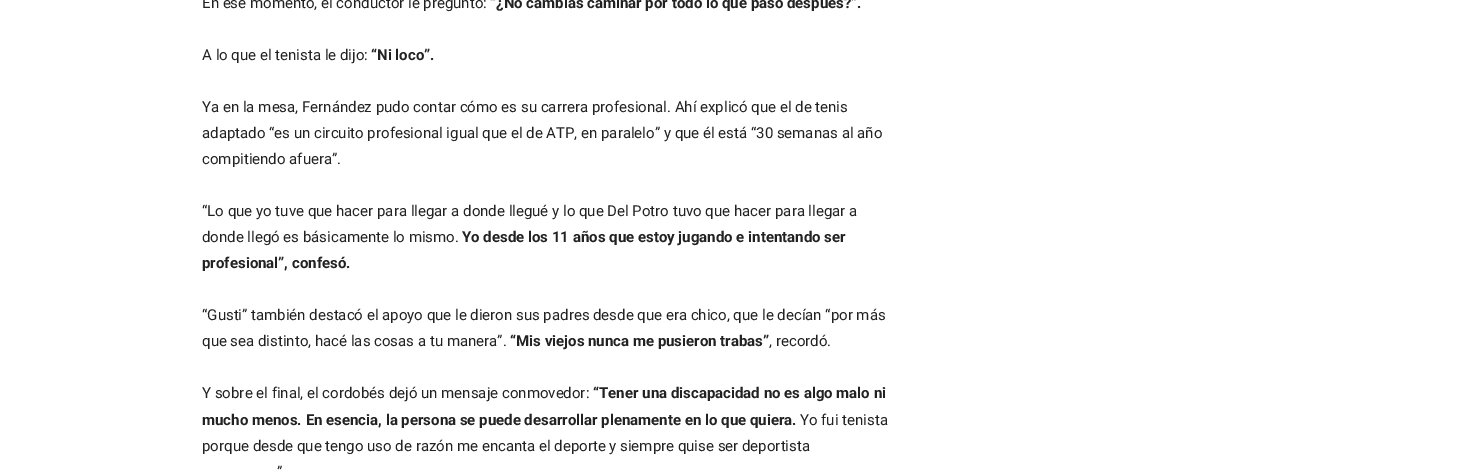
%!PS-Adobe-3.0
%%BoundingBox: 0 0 1471 472
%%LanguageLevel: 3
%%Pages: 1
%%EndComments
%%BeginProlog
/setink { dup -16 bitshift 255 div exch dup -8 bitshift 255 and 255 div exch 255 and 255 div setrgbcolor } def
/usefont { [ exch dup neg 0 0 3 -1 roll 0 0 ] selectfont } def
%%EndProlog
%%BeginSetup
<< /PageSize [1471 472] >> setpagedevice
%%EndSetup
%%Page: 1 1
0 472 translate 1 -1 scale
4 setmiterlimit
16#FFFFFF setink
0 0 1471 472 rectfill
/Roboto-Regular 15 usefont
16#222222 setink
202 8 moveto (En ese momento, el conductor le preguntó:) show
/Roboto-Bold 15 usefont
490 8 moveto (“¿No cambiás caminar por todo lo que pasó después?”.) show
/Roboto-Regular 15 usefont
202 60 moveto (A lo que el tenista le dijo:) show
/Roboto-Bold 15 usefont
371 60 moveto (“Ni loco”.) show
/Roboto-Regular 15 usefont
[
    [(Ya en la mesa, Fernández pudo contar cómo es su carrera profesional. Ahí explicó que el de tenis) 202 112]
    [(adaptado “es un circuito profesional igual que el de ATP, en paralelo” y que él está “30 semanas al año) 202 138]
    [(compitiendo afuera”.) 202 164]
    [(“Lo que yo tuve que hacer para llegar a donde llegué y lo que Del Potro tuvo que hacer para llegar a) 202 216]
    [(donde llegó es básicamente lo mismo.) 202 242]
] { aload pop moveto show } forall
/Roboto-Bold 15 usefont
462 242 moveto (Yo desde los 11 años que estoy jugando e intentando ser) show
202 268 moveto (profesional”, confesó.) show
/Roboto-Regular 15 usefont
202 320 moveto (“Gusti” también destacó el apoyo que le dieron sus padres desde que era chico, que le decían “por más) show
202 346 moveto (que sea distinto, hacé las cosas a tu manera”.) show
/Roboto-Bold 15 usefont
510 346 moveto (“Mis viejos nunca me pusieron trabas”) show
/Roboto-Regular 15 usefont
769 346 moveto (, recordó.) show
202 398 moveto (Y sobre el final, el cordobés dejó un mensaje conmovedor:) show
/Roboto-Bold 15 usefont
593 398 moveto (“Tener una discapacidad no es algo malo ni) show
202 425 moveto (mucho menos. En esencia, la persona se puede desarrollar plenamente en lo que quiera.) show
/Roboto-Regular 15 usefont
[
    [(Yo fui tenista) 800 425]
    [(porque desde que tengo uso de razón me encanta el deporte y siempre quise ser deportista) 202 451]
    [(”) 277 477]
] { aload pop moveto show } forall
showpage
%%EOF
